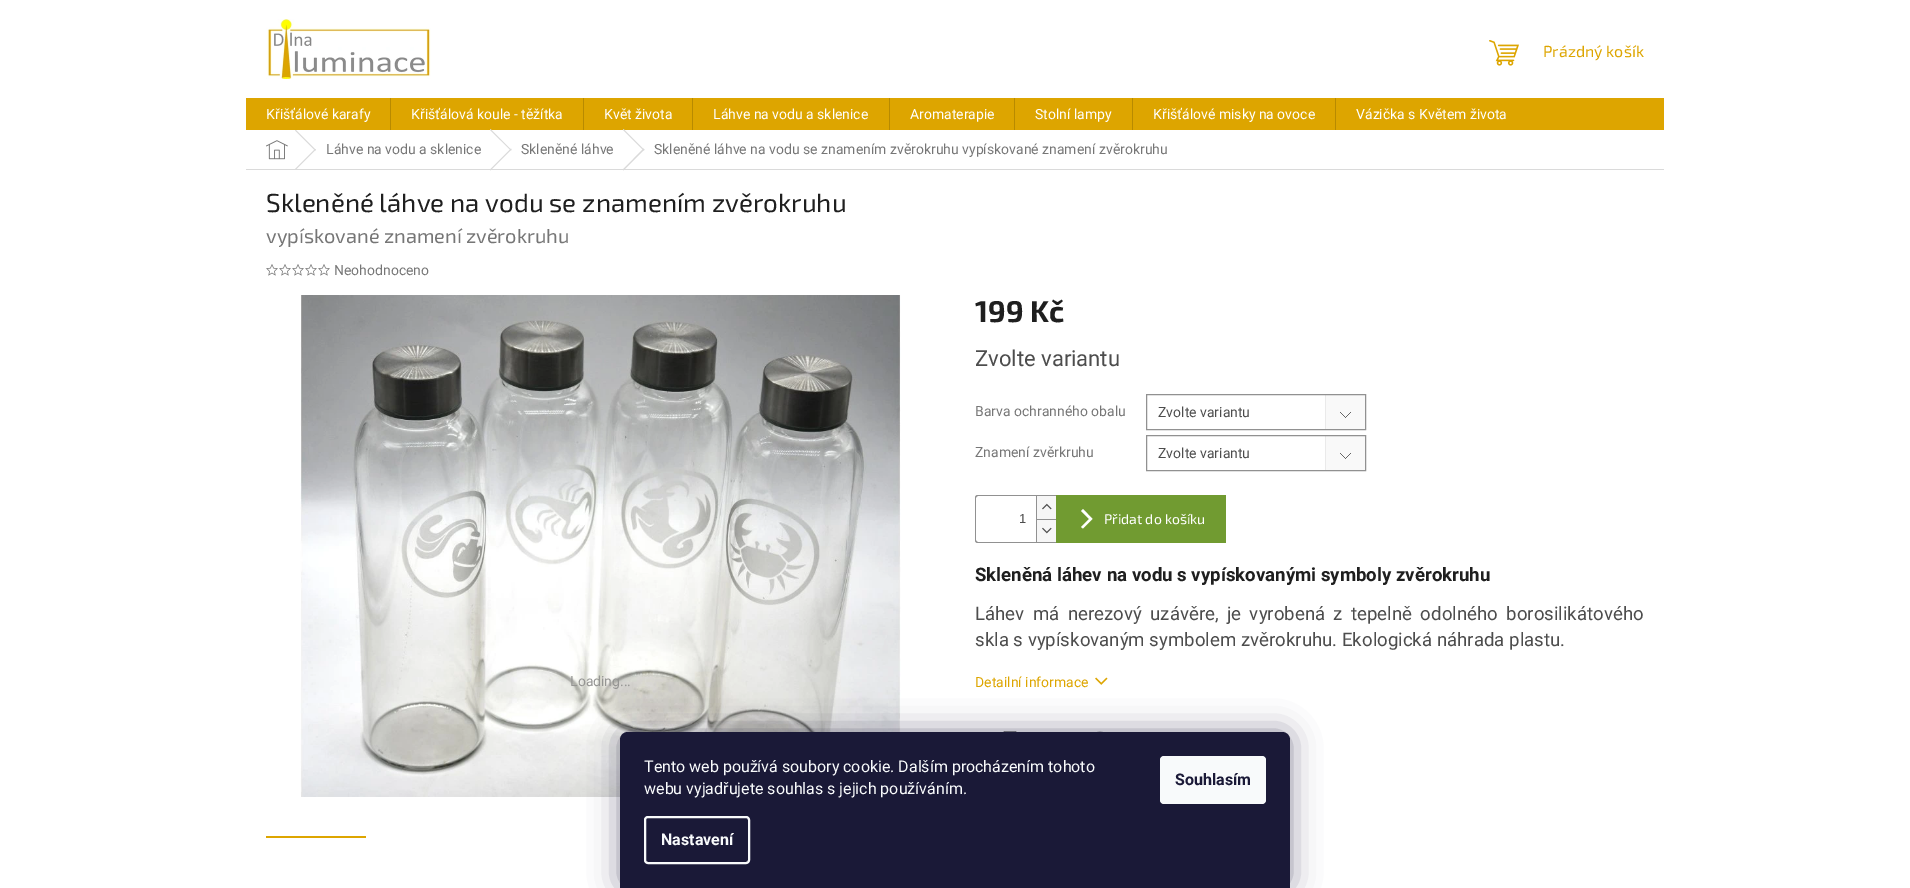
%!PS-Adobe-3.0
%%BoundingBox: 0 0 1910 888
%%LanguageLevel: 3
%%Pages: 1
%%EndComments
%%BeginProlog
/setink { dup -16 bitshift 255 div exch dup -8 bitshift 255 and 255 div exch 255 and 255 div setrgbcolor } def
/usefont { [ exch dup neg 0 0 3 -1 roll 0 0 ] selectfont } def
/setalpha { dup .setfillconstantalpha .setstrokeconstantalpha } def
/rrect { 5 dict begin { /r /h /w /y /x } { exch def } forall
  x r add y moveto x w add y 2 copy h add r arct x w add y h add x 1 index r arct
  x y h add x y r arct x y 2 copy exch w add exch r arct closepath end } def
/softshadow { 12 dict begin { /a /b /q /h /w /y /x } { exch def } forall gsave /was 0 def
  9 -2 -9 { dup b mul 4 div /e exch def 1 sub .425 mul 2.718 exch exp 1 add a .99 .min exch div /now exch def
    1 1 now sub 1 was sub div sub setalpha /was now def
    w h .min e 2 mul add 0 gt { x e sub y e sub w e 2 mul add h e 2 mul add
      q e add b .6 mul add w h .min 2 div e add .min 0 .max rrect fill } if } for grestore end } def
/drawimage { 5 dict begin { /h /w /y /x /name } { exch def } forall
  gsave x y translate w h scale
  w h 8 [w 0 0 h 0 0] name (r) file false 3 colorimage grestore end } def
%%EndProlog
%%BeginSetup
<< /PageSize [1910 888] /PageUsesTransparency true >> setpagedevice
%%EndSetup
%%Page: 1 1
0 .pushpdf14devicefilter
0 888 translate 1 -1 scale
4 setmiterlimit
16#FFFFFF setink
0 0 1910 888 rectfill
(img1.raw) 266 19 165 60 drawimage
(img2.raw) 1489 40 30 26 drawimage
/Exo2-Regular 16 usefont
16#DDA500 setink
1543 57 moveto (Prázdný košík) show
246 98 1418 32 rectfill
/Roboto-Regular 14 usefont
16#FFFFFF setink
266 119 moveto (Křišťálové karafy) show
16#B88A00 setink
390 98 1 32 rectfill
16#FFFFFF setink
411 119 moveto (Křišťálová koule - těžítka) show
16#B88A00 setink
583 98 1 32 rectfill
16#FFFFFF setink
604 119 moveto (Květ života) show
16#B88A00 setink
692 98 1 32 rectfill
16#FFFFFF setink
713 119 moveto (Láhve na vodu a sklenice) show
16#B88A00 setink
889 98 1 32 rectfill
16#FFFFFF setink
910 119 moveto (Aromaterapie) show
16#B88A00 setink
1014 98 1 32 rectfill
16#FFFFFF setink
1035 119 moveto (Stolní lampy) show
16#B88A00 setink
1132 98 1 32 rectfill
16#FFFFFF setink
1153 119 moveto (Křišťálové misky na ovoce) show
16#B88A00 setink
1335 98 1 32 rectfill
16#FFFFFF setink
1356 119 moveto (Vázička s Květem života) show
16#DADADA setink
246 169 1418 1 rectfill
(img3.raw) 266 140 22 20 drawimage
295 130.5 moveto 296 130 lineto 316 150 lineto 315 150.5 lineto closepath fill
315 149 moveto 316 149.5 lineto 296 169.5 lineto 295 169 lineto closepath fill
16#767676 setink
326 154 moveto (Láhve na vodu a sklenice) show
16#DADADA setink
490 130 moveto 490.5 129 lineto 511.5 150 lineto 511 150.5 lineto closepath fill
511 148.5 moveto 511.5 149.5 lineto 490.5 170.5 lineto 490 169.5 lineto closepath fill
16#767676 setink
521 154 moveto (Skleněné láhve) show
16#DADADA setink
623 130 moveto 623.5 129 lineto 644.5 150 lineto 643.5 150.5 lineto closepath fill
643.5 148.5 moveto 644.5 149.5 lineto 623.5 170.5 lineto 623 169.5 lineto closepath fill
16#767676 setink
654 154 moveto (Skleněné láhve na vodu se znamením zvěrokruhu vypískované znamení zvěrokruhu) show
/Exo2-Regular 26 usefont
16#1F1F1F setink
266 212 moveto (Skleněné láhve na vodu se znamením zvěrokruhu) show
/Exo2-Regular 20 usefont
16#767676 setink
266 243 moveto (vypískované znamení zvěrokruhu) show
(img4.raw) 266 264 12 12 drawimage
(img4.raw) 279 264 12 12 drawimage
(img4.raw) 292 264 12 12 drawimage
(img4.raw) 305 264 12 12 drawimage
(img4.raw) 318 264 12 12 drawimage
/Roboto-Regular 14 usefont
334 275 moveto (Neohodnoceno) show
(img5.raw) 300 295 601 502 drawimage
16#959593 setink
570 686 moveto (Loading...) show
16#DDA500 setink
266 836 100 2 rectfill
/Exo2-Bold 30 usefont
16#1F1F1F setink
975 322 moveto (199 Kč) show
/Roboto-Regular 22 usefont
16#4D4D4D setink
975 366 moveto (Zvolte variantu) show
/Roboto-Regular 14 usefont
16#767676 setink
975 416 moveto (Barva ochranného obalu) show
(img6.raw) 1325 395 40 34 drawimage
16#919191 setink
1146.5 394.5 219 35 rectstroke
16#4D4D4D setink
1158 417 moveto (Zvolte variantu) show
16#767676 setink
975 457 moveto (Znamení zvěrkruhu) show
(img6.raw) 1325 436 40 34 drawimage
16#919191 setink
1146.5 435.5 219 35 rectstroke
16#4D4D4D setink
1158 458 moveto (Zvolte variantu) show
16#919191 setink
978 495 moveto 1056 495 lineto 1056 543 lineto 978 543 lineto 976 543 975 542 975 540 curveto 975 498 lineto 975 496 976 495 978 495 curveto closepath 978 496 moveto 1056 496 lineto 1056 542 lineto 978 542 lineto 977 542 976 541 976 540 curveto 976 498 lineto 976 497 977 496 978 496 curveto closepath eofill
/LiberationSans-Regular 13 usefont
16#4D4D4D setink
1019 523 moveto (1) show
16#F6F6F6 setink
1037 496 19 23 rectfill
16#919191 setink
1036 496 1 23 rectfill
(img7.raw) 1042 503 10 7 drawimage
[
    [1037 520 19 22 16#F6F6F6]
    [1036 519 20 1 16#919191]
    [1036 519 1 23 16#919191]
] { aload pop setink rectfill } forall
(img8.raw) 1042 527 10 7 drawimage
16#719B31 setink
1056 495 170 48 rectfill
16#FFFFFF setink
1083 528.5 moveto 1081 527 lineto 1089 519 lineto 1081 511 lineto 1083 509 lineto 1092.5 519 lineto closepath fill
/Exo2-Regular 14 usefont
1104 524 moveto (Přidat do košíku) show
/Roboto-Bold 18.65 usefont
16#1F1F1F setink
975 581 moveto (Skleněná láhev na vodu s vypískovanými symboly zvěrokruhu) show
/Roboto-Regular 18.65 usefont
16#4D4D4D setink
975 620 moveto 3.75 0 32 (Láhev má nerezový uzávěre, je vyrobená z tepelně odolného borosilikátového) widthshow
975 646 moveto (skla s vypískovaným symbolem zvěrokruhu. Ekologická náhrada plastu.) show
/Roboto-Regular 14 usefont
16#DDA500 setink
975 687 moveto (Detailní informace) show
(img9.raw) 1095 677 13 8 drawimage
(img10.raw) 1003 731 14 1 drawimage
(img11.raw) 1097 731 6 1 drawimage
16#1B1939 setink
620 732 670 156 8 15 0.5 softshadow
16#1A1937 setink
628 732 moveto 1282 732 lineto 1286.5 732 1290 735.5 1290 740 curveto 1290 888 lineto 620 888 lineto 620 740 lineto 620 735.5 623.5 732 628 732 curveto closepath fill
/Roboto-Regular 16 usefont
16#F8FAFB setink
644 772 moveto (Tento web používá soubory cookie. Dalším procházením tohoto) show
644 794 moveto (webu vyjadřujete souhlas s jejich používáním.) show
2 setlinewidth
645 817 104 46 3 rrect stroke
/Roboto-Bold 16 usefont
661 845 moveto (Nastavení) show
1160 756 106 48 4 rrect fill
16#1A1937 setink
1175 785 moveto (Souhlasím) show
.poppdf14devicefilter showpage
%%EOF
